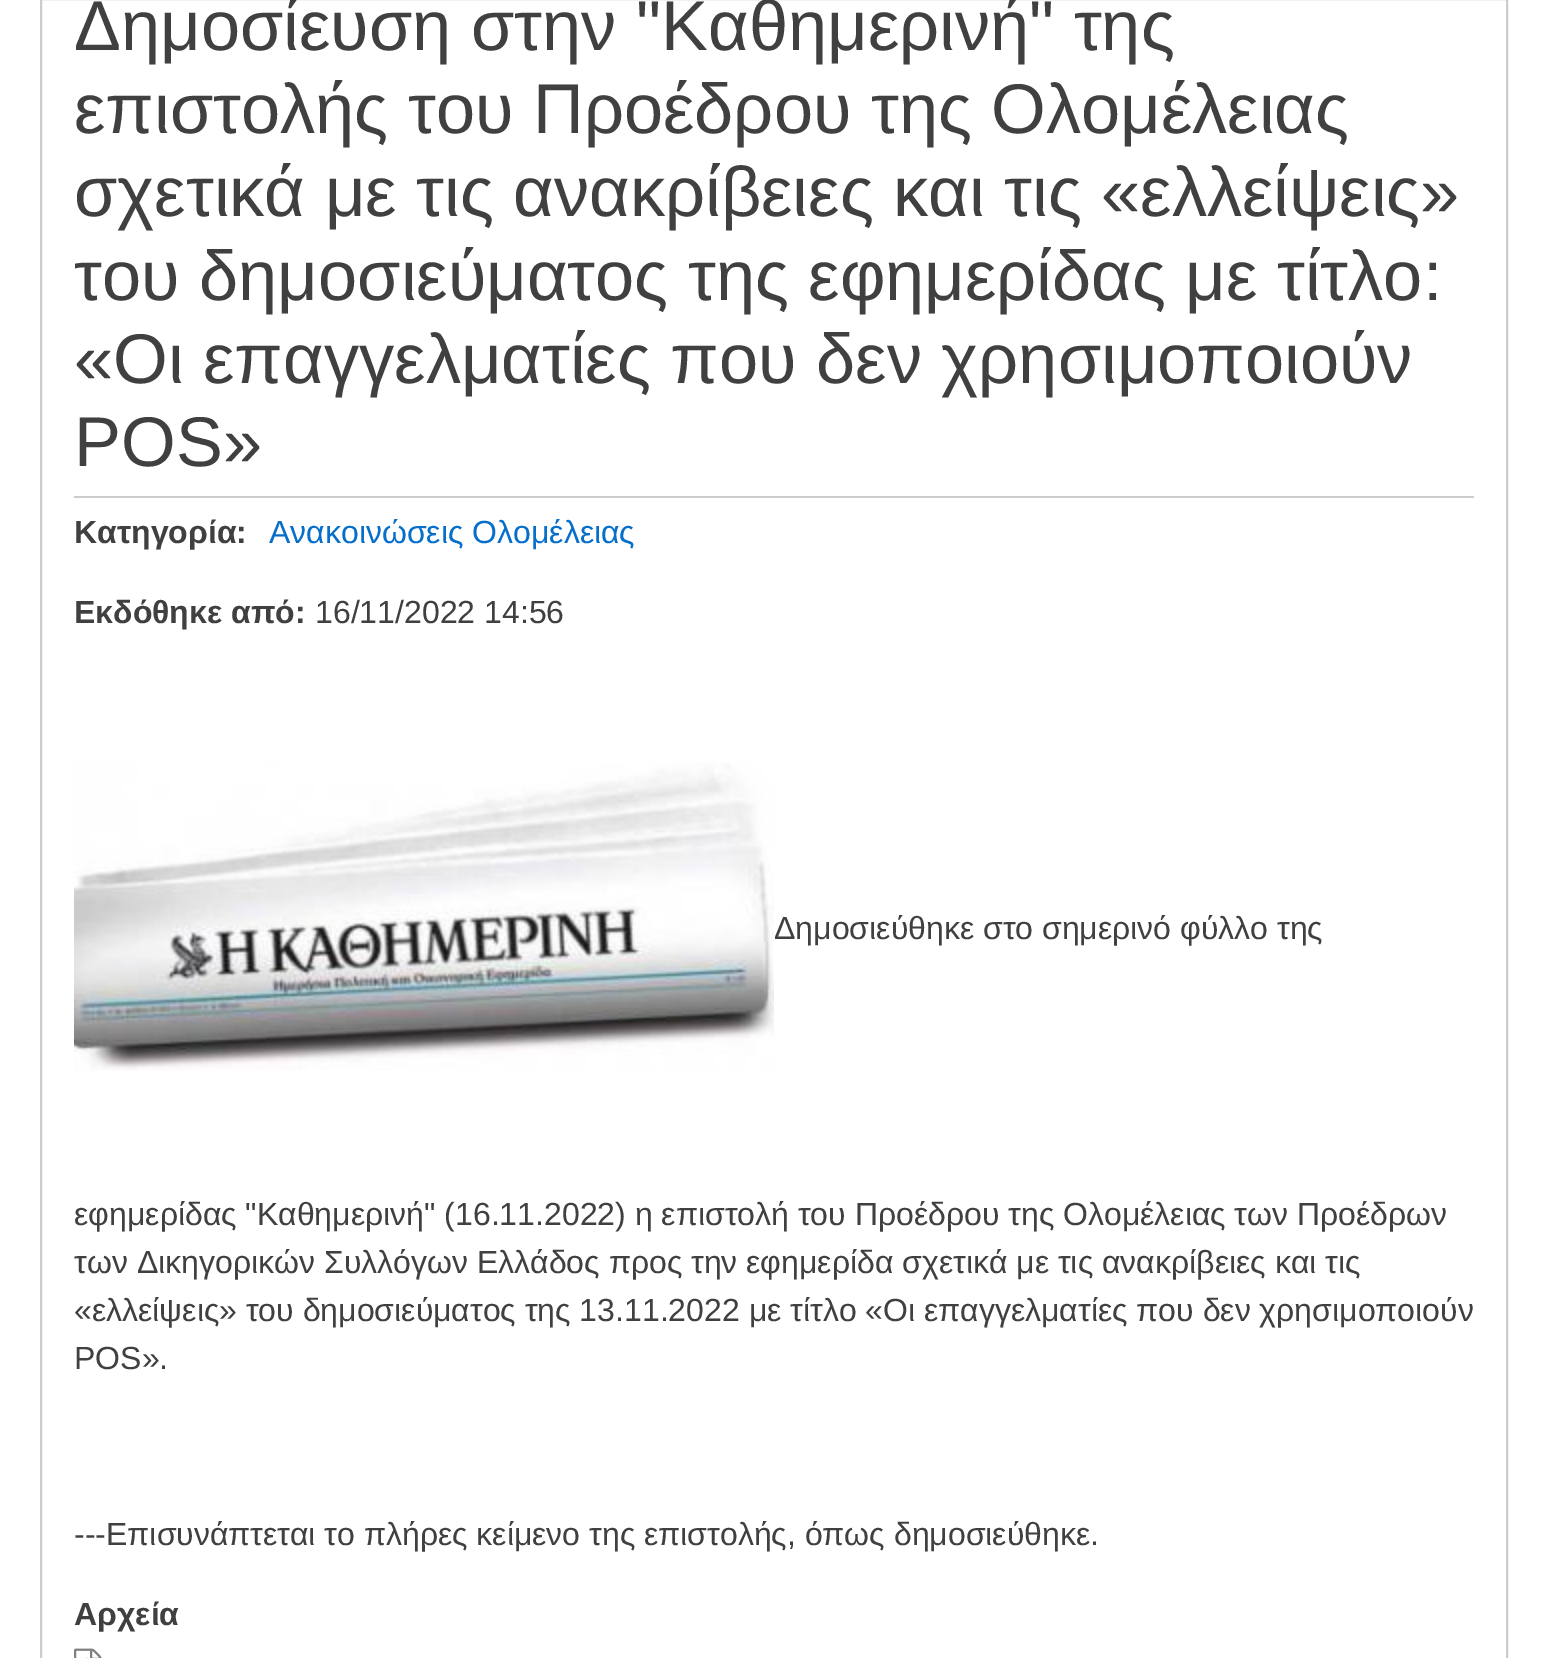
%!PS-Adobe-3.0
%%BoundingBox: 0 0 1548 1658
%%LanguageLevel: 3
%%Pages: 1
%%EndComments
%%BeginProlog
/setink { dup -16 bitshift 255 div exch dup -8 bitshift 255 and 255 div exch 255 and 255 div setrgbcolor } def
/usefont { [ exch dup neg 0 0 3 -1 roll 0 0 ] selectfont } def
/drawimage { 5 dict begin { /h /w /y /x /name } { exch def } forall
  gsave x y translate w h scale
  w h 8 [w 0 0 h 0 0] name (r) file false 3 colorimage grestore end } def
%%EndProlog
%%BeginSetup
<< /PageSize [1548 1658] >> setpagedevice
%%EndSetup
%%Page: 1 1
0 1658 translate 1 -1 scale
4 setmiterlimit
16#FFFFFF setink
0 0 1548 1658 rectfill
16#CCCCCC setink
2 setlinewidth
41 -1 1466 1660 rectstroke
74 496 1400 2 rectfill
/LiberationSans-Regular 70.4 usefont
16#404040 setink
[
    [(Δημοσίευση στην "Καθημερινή" της) 74 50]
    [(επιστολής του Προέδρου της Ολομέλειας) 74 133]
    [(σχετικά με τις ανακρίβειες και τις «ελλείψεις») 74 216]
    [(του δημοσιεύματος της εφημερίδας με τίτλο:) 74 300]
    [(«Οι επαγγελματίες που δεν χρησιμοποιούν) 74 383]
    [(POS») 74 466]
] { aload pop moveto show } forall
/LiberationSans-Bold 32 usefont
74 543 moveto (Κατηγορία:) show
/LiberationSans-Regular 32 usefont
16#056FCB setink
269 543 moveto (Ανακοινώσεις Ολομέλειας) show
/LiberationSans-Bold 32 usefont
16#404040 setink
74 623 moveto (Εκδόθηκε από:) show
/LiberationSans-Regular 32 usefont
315 623 moveto (16/11/2022 14:56) show
(img1.raw) 74 762 700 309 drawimage
[
    [(Δημοσιεύθηκε στο σημερινό φύλλο της) 774 939]
    [(εφημερίδας "Καθημερινή" \(16.11.2022\) η επιστολή του Προέδρου της Ολομέλειας των Προέδρων) 74 1225]
    [(των Δικηγορικών Συλλόγων Ελλάδος προς την εφημερίδα σχετικά με τις ανακρίβειες και τις) 74 1273]
    [(«ελλείψεις» του δημοσιεύματος της 13.11.2022 με τίτλο «Οι επαγγελματίες που δεν χρησιμοποιούν) 74 1321]
    [(POS».) 74 1369]
    [(---Eπισυνάπτεται το πλήρες κείμενο της επιστολής, όπως δημοσιεύθηκε.) 74 1545]
] { aload pop moveto show } forall
/LiberationSans-Bold 32 usefont
74 1625 moveto (Αρχεία) show
(img2.raw) 74 1648 28 10 drawimage
showpage
%%EOF
